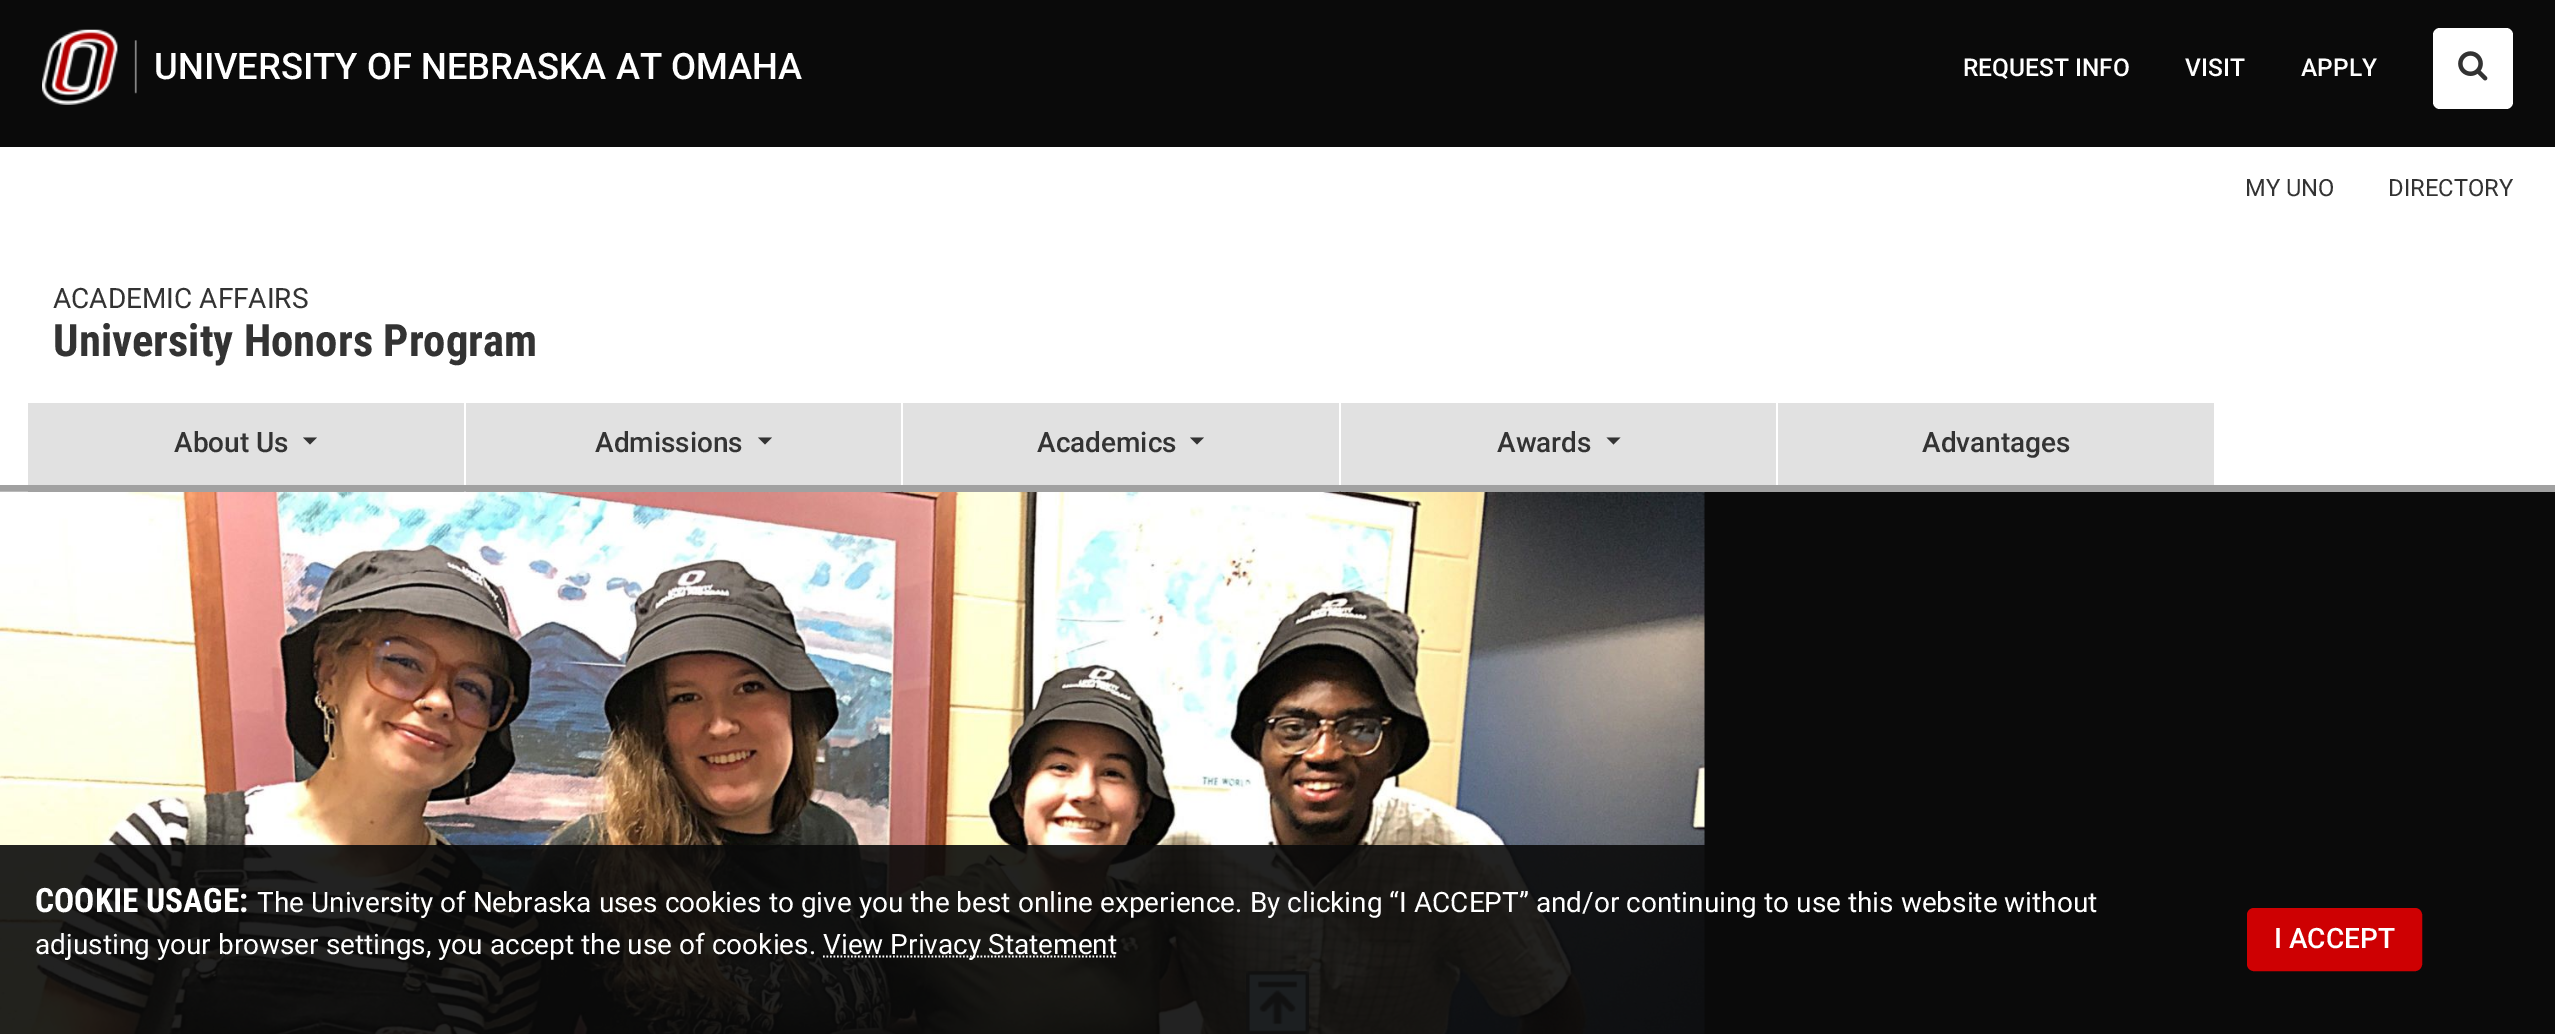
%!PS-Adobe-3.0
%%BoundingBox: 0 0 2555 1034
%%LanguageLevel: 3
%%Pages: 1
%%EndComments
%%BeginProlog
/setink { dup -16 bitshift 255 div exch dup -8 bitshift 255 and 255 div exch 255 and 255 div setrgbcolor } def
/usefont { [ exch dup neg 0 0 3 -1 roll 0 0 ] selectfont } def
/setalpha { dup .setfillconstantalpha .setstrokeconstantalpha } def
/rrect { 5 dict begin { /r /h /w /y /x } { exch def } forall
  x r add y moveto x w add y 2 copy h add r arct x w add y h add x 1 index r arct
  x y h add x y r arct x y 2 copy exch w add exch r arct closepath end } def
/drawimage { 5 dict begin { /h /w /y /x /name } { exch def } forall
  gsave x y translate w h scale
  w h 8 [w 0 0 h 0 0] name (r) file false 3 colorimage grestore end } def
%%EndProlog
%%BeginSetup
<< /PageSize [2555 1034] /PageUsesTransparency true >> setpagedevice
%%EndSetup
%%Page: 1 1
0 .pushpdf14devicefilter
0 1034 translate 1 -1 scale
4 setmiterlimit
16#FFFFFF setink
0 0 2555 1034 rectfill
16#A1A1A1 setink
0 485 2555 7 rectfill
16#0A0A0A setink
0 0 2555 147 rectfill
(img1.raw) 42 29 95 76 drawimage
/Roboto-Medium 36.4 usefont
16#FFFFFF setink
154 79 moveto (UNIVERSITY OF NEBRASKA AT OMAHA) show
/Roboto-Medium 24.5 usefont
[
    [(REQUEST INFO) 1963 76]
    [(VISIT) 2185 76]
    [(APPLY) 2301 76]
] { aload pop moveto show } forall
2433 28 80 81 7 rrect fill
(img2.raw) 2458 51 30 30 drawimage
/Roboto-Regular 23.75 usefont
16#333333 setink
2245 196 moveto (MY UNO) show
2388 196 moveto (DIRECTORY) show
/Roboto-Regular 28 usefont
53 308 moveto (ACADEMIC AFFAIRS) show
/RobotoCondensed-Bold 44.75 usefont
53 356 moveto (University Honors Program) show
16#E1E1E1 setink
28 403 436 82 rectfill
16#0A0A0A setink
1704 492 851 542 rectfill
(img3.raw) 0 491 1705 543 drawimage
16#A1A1A1 setink
28 491 436 1 rectfill
/Roboto-Medium 28 usefont
16#333333 setink
174 452 moveto (About Us) show
303 437.5 moveto 317 437.5 lineto 310 444.5 lineto closepath fill
16#E1E1E1 setink
466 403 435 82 rectfill
16#A1A1A1 setink
466 491 435 1 rectfill
16#333333 setink
595 452 moveto (Admissions) show
758 437.5 moveto 772 437.5 lineto 765 444.5 lineto closepath fill
16#E1E1E1 setink
903 403 436 82 rectfill
16#A1A1A1 setink
903 491 436 1 rectfill
16#333333 setink
1037 452 moveto (Academics) show
1190 437.5 moveto 1204 437.5 lineto 1197 444.5 lineto closepath fill
16#E1E1E1 setink
1341 403 435 82 rectfill
16#A1A1A1 setink
1341 491 364 1 rectfill
16#333333 setink
1497 452 moveto (Awards) show
1606.5 437.5 moveto 1620.5 437.5 lineto 1613.5 444.5 lineto closepath fill
16#E1E1E1 setink
1778 403 436 82 rectfill
16#333333 setink
1922 452 moveto (Advantages) show
(img4.raw) 1246 971 63 63 drawimage
0.9 setalpha
16#0A0A0A setink
0 845 1705 189 rectfill
/RobotoCondensed-Bold 33.5 usefont
1 setalpha
16#FFFFFF setink
35 912 moveto (COOKIE USAGE:) show
/Roboto-Regular 28 usefont
257 912 moveto (The University of Nebraska uses cookies to give you the best online experience. By clicking “I ACCEPT” and/or continuing to use this website without) show
35 954 moveto (adjusting your browser settings, you accept the use of cookies.) show
1.8 setlinewidth
[1.75 1.75] 0 setdash
823 956.5 moveto 1117 956.5 lineto stroke
823 954 moveto (View Privacy Statement) show
16#CE0002 setink
2249 910 171 59 5 rrect gsave fill grestore
4 setlinewidth
[] 0 setdash
stroke
/Roboto-Medium 28 usefont
16#FFFFFF setink
2274 948 moveto (I ACCEPT) show
.poppdf14devicefilter showpage
%%EOF
